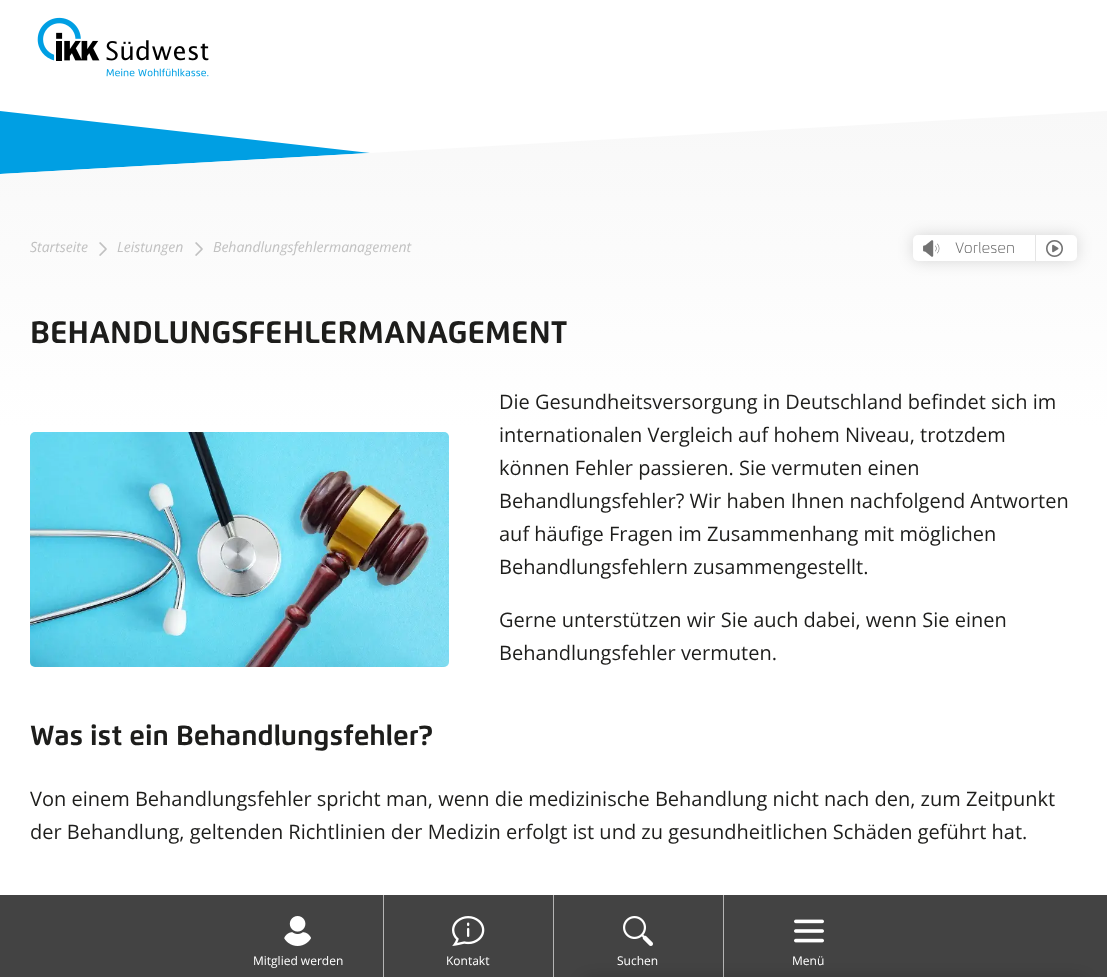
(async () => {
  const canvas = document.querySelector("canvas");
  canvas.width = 1107;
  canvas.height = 977;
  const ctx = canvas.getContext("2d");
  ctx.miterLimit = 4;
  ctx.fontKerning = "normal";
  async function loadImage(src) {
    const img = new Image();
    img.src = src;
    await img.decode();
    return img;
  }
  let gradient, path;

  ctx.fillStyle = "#ffffff";
  ctx.fillRect(0, 0, 1107, 977);
  ctx.fillStyle = "#009fe3";
  path = new Path2D("M0 111L370 153L0 174Z");
  ctx.fill(path);
  gradient = ctx.createLinearGradient(554, 427, 554, 111);
  gradient.addColorStop(0, "rgba(248, 248, 248, 0)");
  gradient.addColorStop(1, "#f8f8f8");
  ctx.fillStyle = gradient;
  path = new Path2D("M0 427H1107V111L0 174Z");
  ctx.fill(path);
  ctx.drawImage(await loadImage("img/1.png"), 99, 242, 8, 14);
  ctx.drawImage(await loadImage("img/1.png"), 195, 242, 8, 14);
  ctx.fillStyle = "rgba(0, 0, 0, 0.15)";
  ctx.filter = "blur(7.5px)";
  ctx.beginPath();
  ctx.roundRect(913, 235, 164, 26, 5);
  ctx.fill();
  ctx.filter = "none";
  ctx.fillStyle = "#ffffff";
  ctx.beginPath();
  ctx.roundRect(913, 235, 122, 26, [5, 0, 0, 5]);
  ctx.fill();
  ctx.drawImage(await loadImage("img/2.png"), 923, 240, 17, 17);
  ctx.beginPath();
  ctx.roundRect(1035, 235, 42, 26, [0, 5, 5, 0]);
  ctx.fill();
  ctx.fillStyle = "#e5e5e5";
  ctx.fillRect(1035, 235, 1, 26);
  ctx.drawImage(await loadImage("img/3.png"), 1046, 240, 17, 17);
  ctx.drawImage(await loadImage("img/4.png"), 30, 432, 419, 235);
  ctx.drawImage(await loadImage("img/5.png"), 37, 17, 172, 60);
  ctx.fillStyle = "#434343";
  ctx.fillRect(0, 895, 1107, 82);
  ctx.fillStyle = "#b4b4b4";
  ctx.fillRect(383, 895, 1, 82);
  ctx.drawImage(await loadImage("img/6.png"), 284, 916, 27, 30);
  ctx.fillRect(553, 895, 1, 82);
  ctx.drawImage(await loadImage("img/7.png"), 452, 916, 33, 30);
  ctx.fillRect(723, 895, 1, 82);
  ctx.drawImage(await loadImage("img/8.png"), 623, 916, 30, 30);
  ctx.drawImage(await loadImage("img/9.png"), 794, 919, 30, 24);
  ctx.fillStyle = "rgba(0, 0, 0, 0.2)";
  ctx.filter = "blur(7.5px)";
  ctx.beginPath();
  ctx.roundRect(582, 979, 505, 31, 10);
  ctx.fill();
  ctx.filter = "none";
  ctx.font = "italic 14px Open Sans";
  ctx.fillStyle = "#c1c1c1";
  for (const [text, x, y] of [
    ["Startseite", 30, 252],
    ["Leistungen", 117, 252],
    ["Behandlungsfehlermanagement", 213, 252],
  ]) {
    ctx.fillText(text, x, y);
  }
  ctx.font = "300 15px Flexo";
  ctx.fillStyle = "#727272";
  ctx.fillText("Vorlesen", 955, 253);
  ctx.font = "bold 31px Flexo";
  ctx.fillStyle = "#1d1d1b";
  ctx.fillText("BEHANDLUNGSFEHLERMANAGEMENT", 30, 343);
  ctx.font = "20px Open Sans";
  for (const [text, x, y] of [
    ["Die Gesundheitsversorgung in Deutschland befindet sich im", 499, 409],
    ["internationalen Vergleich auf hohem Niveau, trotzdem", 499, 442],
    ["können Fehler passieren. Sie vermuten einen", 499, 475],
    ["Behandlungsfehler? Wir haben Ihnen nachfolgend Antworten", 499, 508],
    ["auf häufige Fragen im Zusammenhang mit möglichen", 499, 541],
    ["Behandlungsfehlern zusammengestellt.", 499, 574],
    ["Gerne unterstützen wir Sie auch dabei, wenn Sie einen", 499, 627],
    ["Behandlungsfehler vermuten.", 499, 660],
  ]) {
    ctx.fillText(text, x, y);
  }
  ctx.font = "bold 27.6px Flexo";
  ctx.fillText("Was ist ein Behandlungsfehler?", 30, 745);
  ctx.font = "20px Open Sans";
  ctx.fillText("Von einem Behandlungsfehler spricht man, wenn die medizinische Behandlung nicht nach den, zum Zeitpunkt", 30, 806);
  ctx.fillText("der Behandlung, geltenden Richtlinien der Medizin erfolgt ist und zu gesundheitlichen Schäden geführt hat.", 30, 839);
  ctx.font = "12px Open Sans";
  ctx.fillStyle = "#ffffff";
  for (const [text, x, y] of [
    ["Mitglied werden", 253, 965],
    ["Kontakt", 446, 965],
    ["Suchen", 617, 965],
    ["Menü", 792, 965],
  ]) {
    ctx.fillText(text, x, y);
  }
})();
